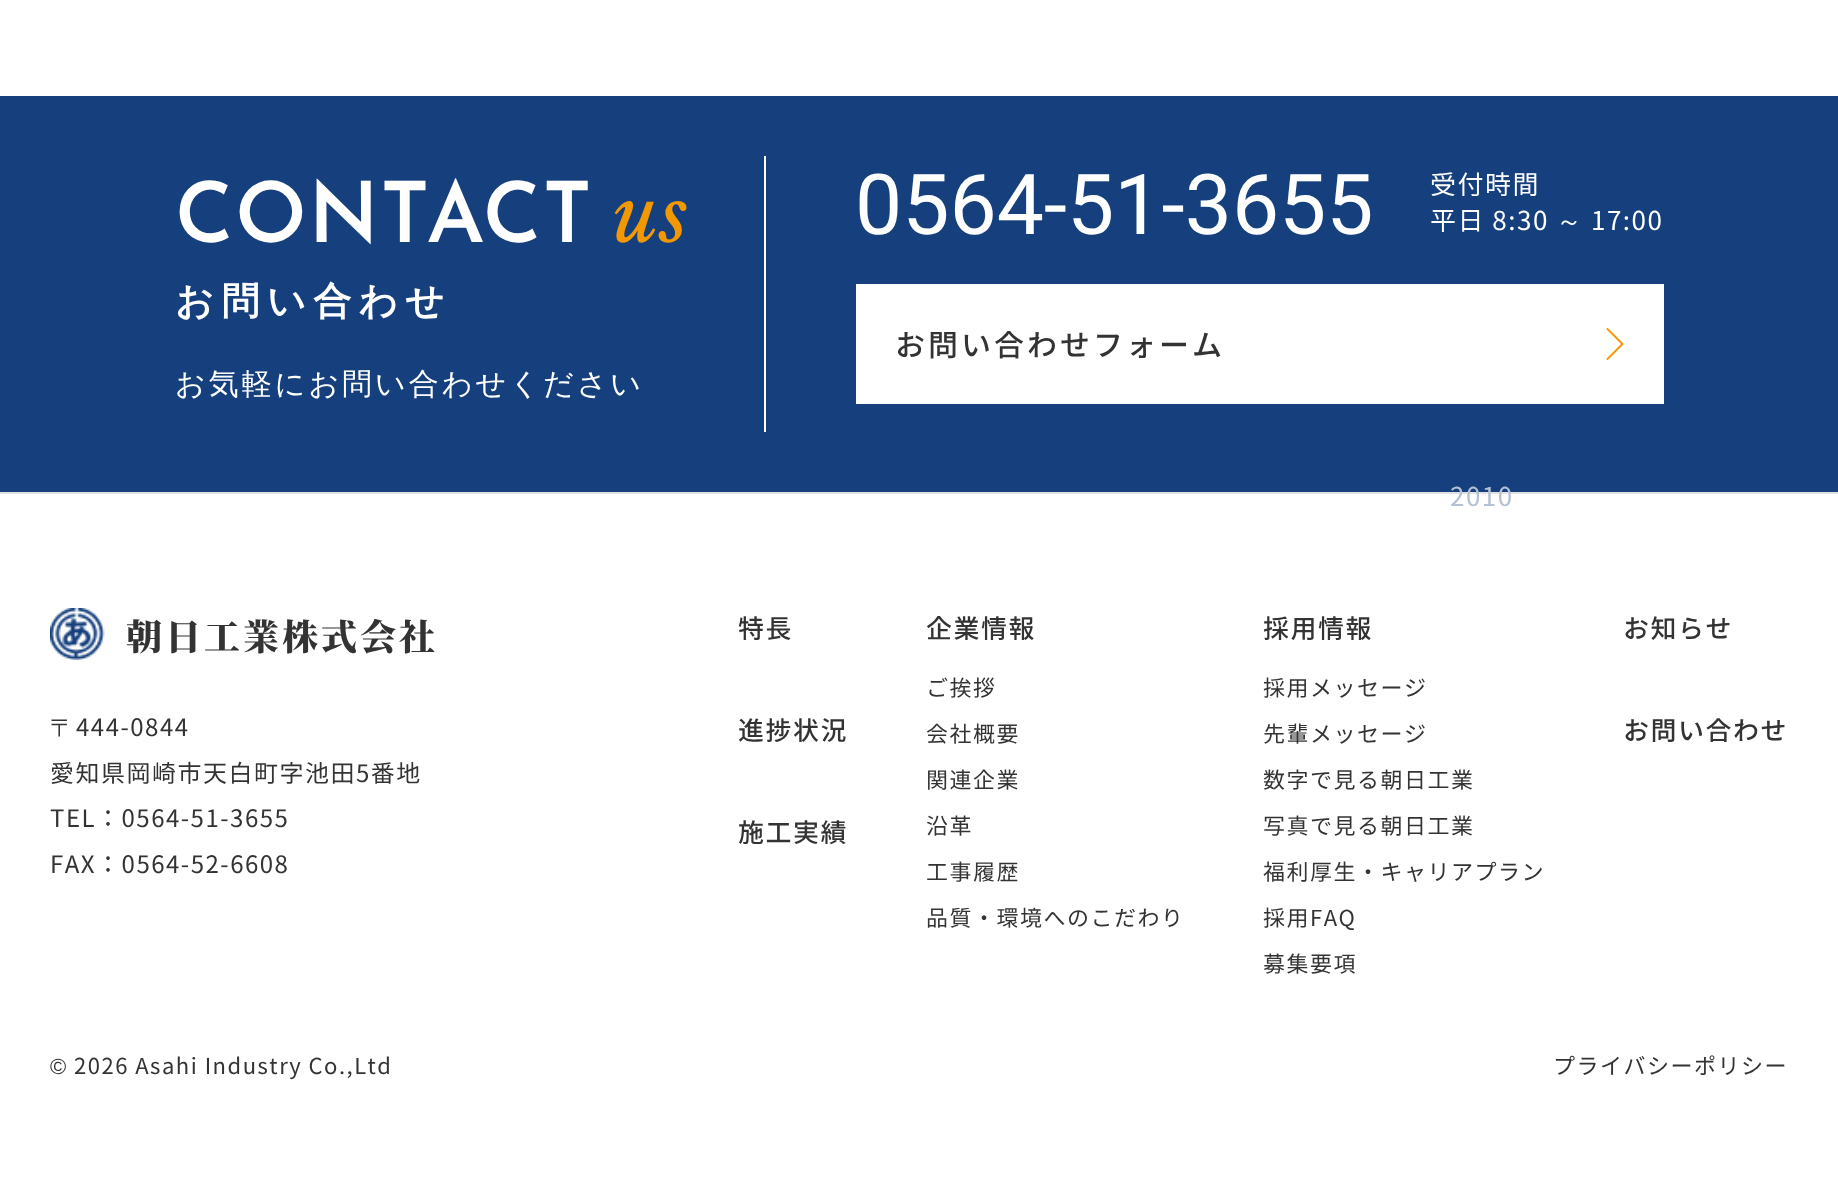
(async () => {
  const canvas = document.querySelector("canvas");
  canvas.width = 1838;
  canvas.height = 1196;
  const ctx = canvas.getContext("2d");
  ctx.miterLimit = 4;
  ctx.fontKerning = "normal";
  async function loadImage(src) {
    const img = new Image();
    img.src = src;
    await img.decode();
    return img;
  }

  ctx.fillStyle = "#ffffff";
  ctx.fillRect(0, 0, 1838, 1196);
  for (const [x, y, w, h, color] of [
    [0, 96, 1838, 396, "#16407d"],
    [764, 156, 2, 276, "#ffffff"],
    [856, 284, 808, 120, "#ffffff"],
  ]) {
    ctx.fillStyle = color;
    ctx.fillRect(x, y, w, h);
  }
  ctx.drawImage(await loadImage("img/1.png"), 1606, 328, 18, 32);
  ctx.fillStyle = "#e2e2e2";
  ctx.fillRect(0, 492, 1838, 2);
  ctx.drawImage(await loadImage("img/2.png"), 50, 608, 55, 52);
  ctx.letterSpacing = "1.5px";
  ctx.font = "600 84px Josefin Sans";
  ctx.fillStyle = "#ffffff";
  ctx.fillText("CONTACT", 175, 242);
  ctx.font = "italic 76px Libre Baskerville";
  ctx.fillStyle = "#f39800";
  ctx.fillText("us", 613, 242);
  ctx.letterSpacing = "7.5px";
  ctx.font = "bold 38px WenQuanYi Zen Hei";
  ctx.fillStyle = "#ffffff";
  ctx.fillText("お問い合わせ", 175, 314);
  ctx.letterSpacing = "3px";
  ctx.font = "500 30px WenQuanYi Zen Hei";
  ctx.fillText("お気軽にお問い合わせください", 175, 394);
  ctx.letterSpacing = "0px";
  ctx.font = "84px Roboto";
  ctx.fillText("0564-51-3655", 855, 234);
  ctx.letterSpacing = "1.5px";
  ctx.font = "26px Noto Sans JP";
  ctx.fillText("受付時間", 1430, 194);
  ctx.fillText("平日 8:30", 1430, 230);
  ctx.font = "500 26px WenQuanYi Zen Hei";
  ctx.fillText("～", 1556, 230);
  ctx.font = "26px Noto Sans JP";
  ctx.fillText("17:00", 1591, 230);
  ctx.letterSpacing = "3px";
  ctx.font = "500 30px Noto Sans JP";
  ctx.fillStyle = "#333333";
  ctx.fillText("お問い合わせフォーム", 895, 356);
  ctx.letterSpacing = "1.5px";
  ctx.font = "26px Noto Sans JP";
  ctx.fillStyle = "#b4c1d4";
  ctx.fillText("2010", 1450, 506);
  ctx.letterSpacing = "3px";
  ctx.font = "900 36px Noto Serif JP";
  ctx.fillStyle = "#333333";
  ctx.fillText("朝日工業株式会社", 126, 650);
  ctx.letterSpacing = "1.5px";
  ctx.font = "500 24px WenQuanYi Zen Hei";
  ctx.fillText("〒", 50, 736);
  ctx.font = "24px Noto Sans JP";
  for (const [text, x, y] of [
    ["444-0844", 76, 736],
    ["愛知県岡崎市天白町字池田5番地", 50, 782],
    ["TEL：0564-51-3655", 50, 827],
    ["FAX：0564-52-6608", 50, 873],
  ]) {
    ctx.fillText(text, x, y);
  }
  ctx.font = "500 26px Noto Sans JP";
  for (const [text, x, y] of [
    ["特長", 738, 638],
    ["進捗状況", 738, 740],
    ["施工実績", 738, 842],
    ["企業情報", 926, 638],
  ]) {
    ctx.fillText(text, x, y);
  }
  ctx.font = "22px Noto Sans JP";
  for (const [text, x, y] of [
    ["ご挨拶", 926, 696],
    ["会社概要", 926, 742],
    ["関連企業", 926, 788],
    ["沿革", 926, 834],
    ["工事履歴", 926, 880],
    ["品質・環境へのこだわり", 926, 926],
  ]) {
    ctx.fillText(text, x, y);
  }
  ctx.font = "500 26px Noto Sans JP";
  ctx.fillText("採用情報", 1263, 638);
  ctx.font = "22px Noto Sans JP";
  for (const [text, x, y] of [
    ["採用メッセージ", 1263, 696],
    ["先輩メッセージ", 1263, 742],
    ["数字で見る朝日工業", 1263, 788],
    ["写真で見る朝日工業", 1263, 834],
    ["福利厚生・キャリアプラン", 1263, 880],
    ["採用FAQ", 1263, 926],
    ["募集要項", 1263, 972],
  ]) {
    ctx.fillText(text, x, y);
  }
  ctx.font = "500 26px Noto Sans JP";
  ctx.fillText("お知らせ", 1623, 638);
  ctx.fillText("お問い合わせ", 1623, 740);
  ctx.font = "22px Liberation Sans";
  ctx.fillText("©", 50, 1074);
  ctx.font = "22px Noto Sans JP";
  ctx.fillText("2026 Asahi Industry Co.,Ltd", 74, 1074);
  ctx.fillText("プライバシーポリシー", 1553, 1074);
})();
